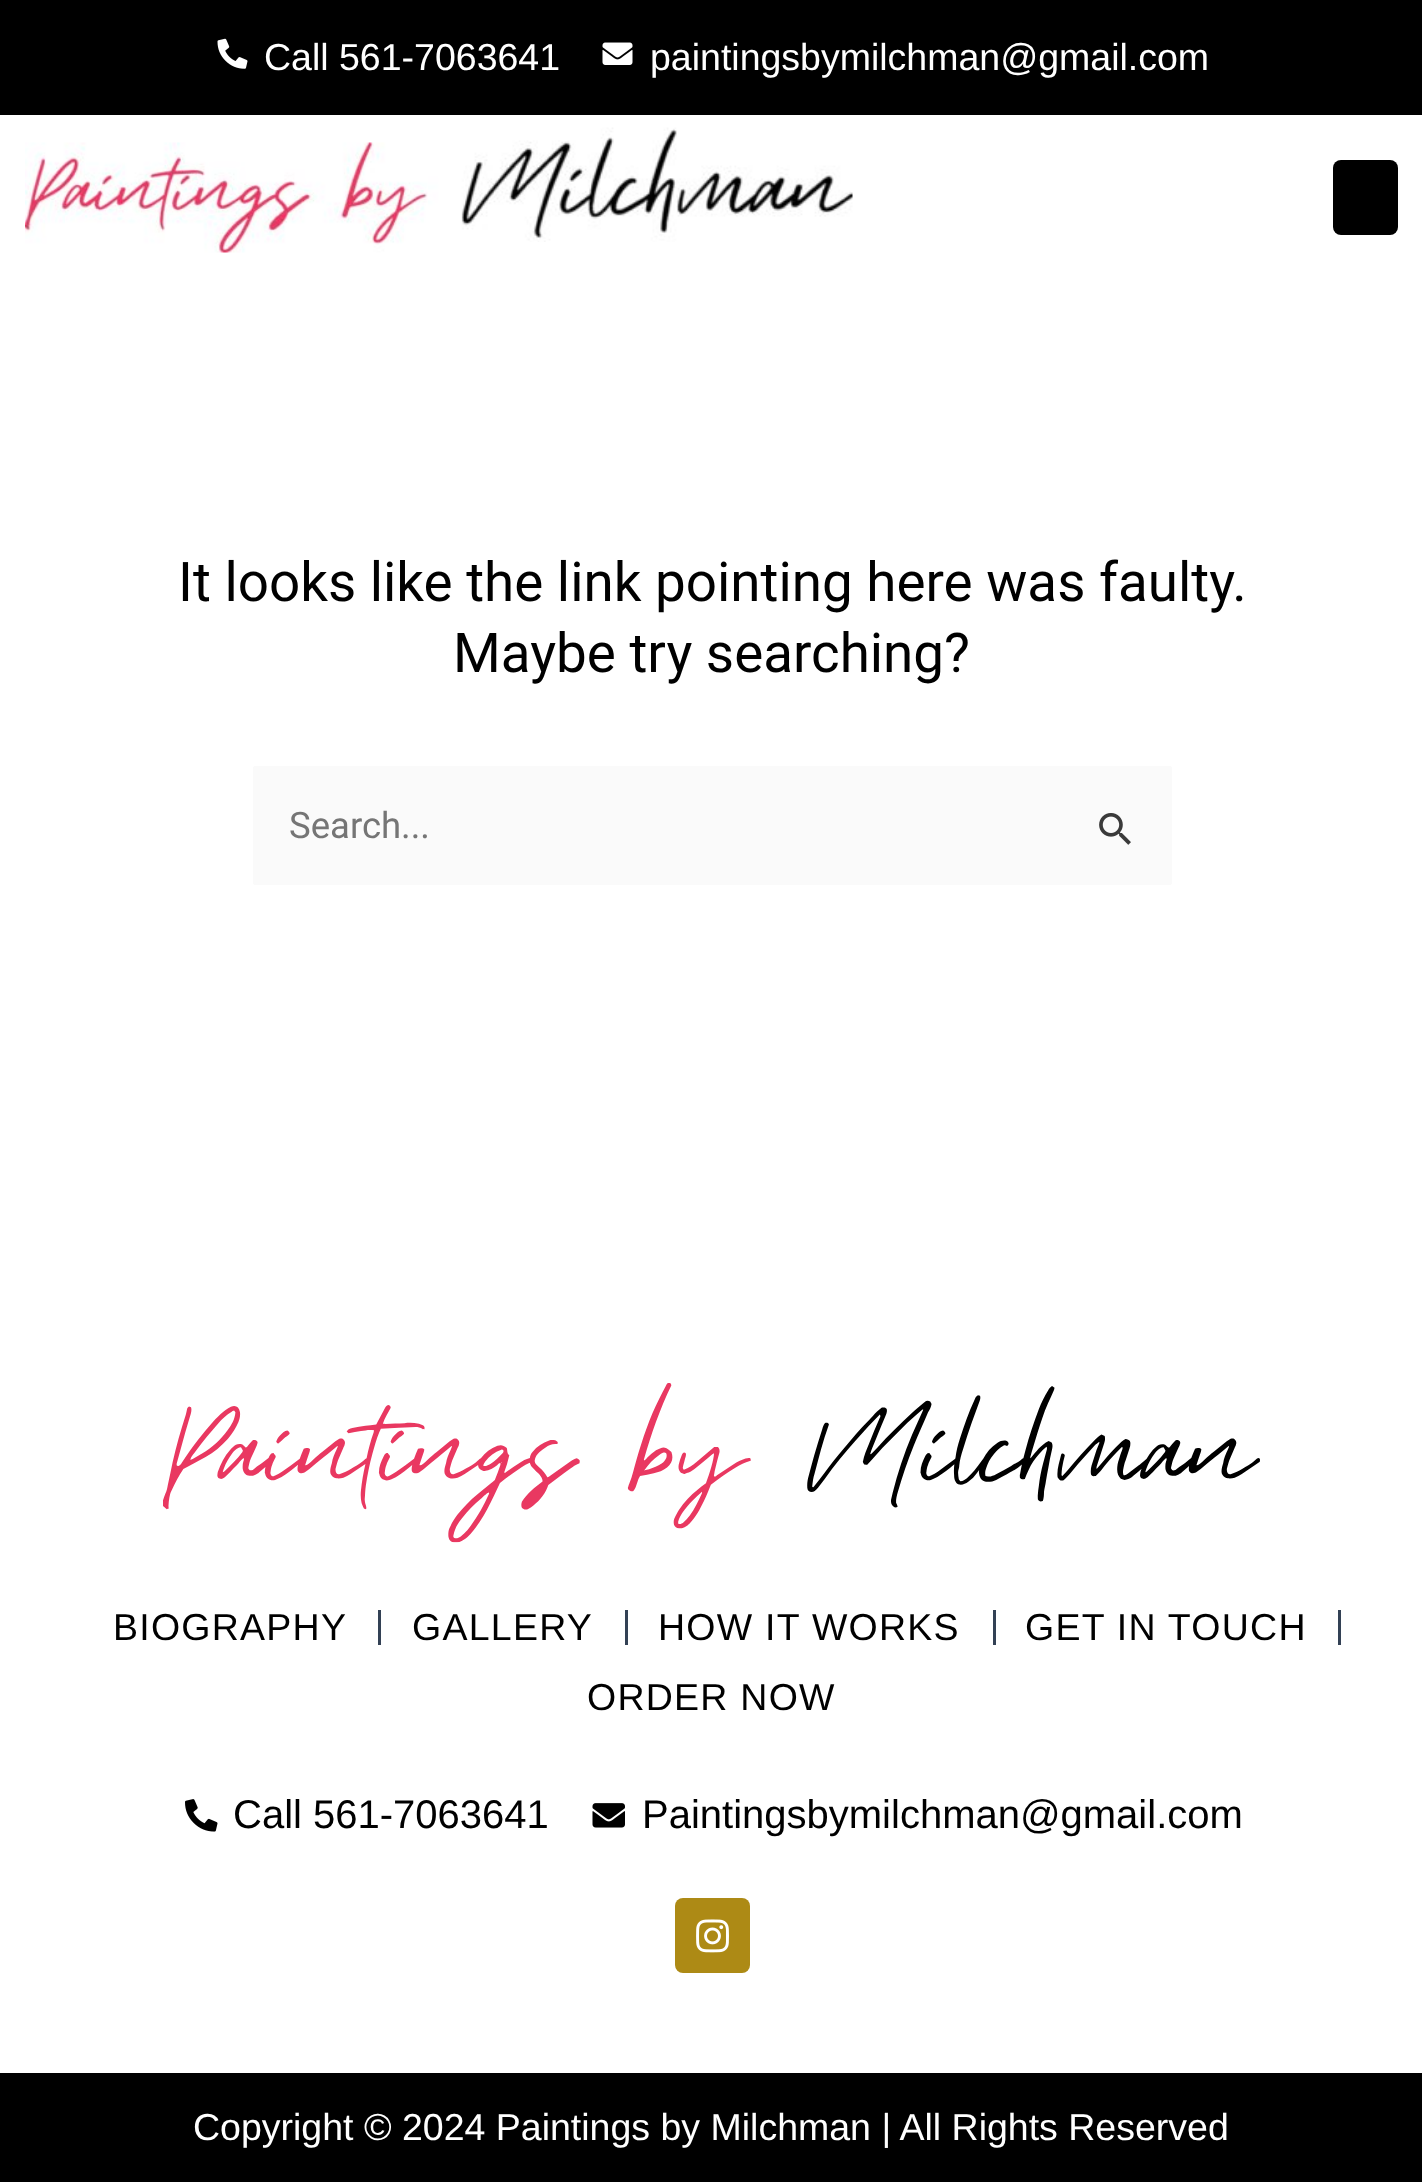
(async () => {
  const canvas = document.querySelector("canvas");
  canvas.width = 1422;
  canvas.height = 2182;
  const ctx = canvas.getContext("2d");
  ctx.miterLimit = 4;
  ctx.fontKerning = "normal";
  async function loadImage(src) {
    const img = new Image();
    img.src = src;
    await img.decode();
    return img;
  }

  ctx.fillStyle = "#ffffff";
  ctx.fillRect(0, 0, 1422, 2182);
  ctx.fillStyle = "#000000";
  ctx.fillRect(0, 0, 1422, 115);
  ctx.drawImage(await loadImage("img/1.png"), 217, 38, 31, 31);
  ctx.drawImage(await loadImage("img/2.png"), 602, 42, 31, 23);
  ctx.drawImage(await loadImage("img/3.png"), 25, 142, 403, 111);
  ctx.drawImage(await loadImage("img/4.png"), 428, 127, 425, 115);
  ctx.beginPath();
  ctx.roundRect(1333, 160, 65, 75, 8);
  ctx.fill();
  ctx.fillStyle = "#fafafa";
  ctx.beginPath();
  ctx.roundRect(251.5, 764.5, 922, 122, 3.5);
  ctx.fill();
  ctx.strokeStyle = "#ffffff";
  ctx.lineWidth = 3;
  ctx.stroke();
  ctx.drawImage(await loadImage("img/5.png"), 1099, 813, 32, 32);
  ctx.drawImage(await loadImage("img/6.png"), 163, 1383, 1097, 160);
  for (const [x, y, w, h, color] of [
    [378, 1610, 3, 35, "#334155"],
    [625, 1610, 3, 35, "#334155"],
    [993, 1610, 3, 35, "#334155"],
    [1338, 1610, 3, 35, "#334155"],
  ]) {
    ctx.fillStyle = color;
    ctx.fillRect(x, y, w, h);
  }
  ctx.drawImage(await loadImage("img/7.png"), 185, 1799, 33, 33);
  ctx.drawImage(await loadImage("img/8.png"), 592, 1803, 33, 25);
  ctx.fillStyle = "#ad8a15";
  ctx.beginPath();
  ctx.roundRect(675, 1898, 75, 75, 8);
  ctx.fill();
  ctx.drawImage(await loadImage("img/9.png"), 696, 1919, 33, 34);
  ctx.fillStyle = "#000000";
  ctx.fillRect(0, 2073, 1422, 109);
  ctx.font = "37.5px Liberation Sans";
  ctx.fillStyle = "#ffffff";
  ctx.fillText("Call 561-7063641", 264, 70);
  ctx.fillText("paintingsbymilchman@gmail.com", 650, 70);
  ctx.font = "54.75px Roboto";
  ctx.fillStyle = "#000000";
  ctx.fillText("It looks like the link pointing here was faulty.", 178, 601);
  ctx.fillText("Maybe try searching?", 453, 672);
  ctx.font = "36.5px Roboto";
  ctx.fillStyle = "#757575";
  ctx.fillText("Search...", 289, 838);
  ctx.letterSpacing = "1.25px";
  ctx.font = "37.5px Liberation Sans";
  ctx.fillStyle = "#000000";
  for (const [text, x, y] of [
    ["BIOGRAPHY", 113, 1640],
    ["GALLERY", 412, 1640],
    ["HOW IT WORKS", 658, 1640],
    ["GET IN TOUCH", 1025, 1640],
    ["ORDER NOW", 587, 1710],
  ]) {
    ctx.fillText(text, x, y);
  }
  ctx.letterSpacing = "0px";
  ctx.font = "40px Liberation Sans";
  ctx.fillText("Call 561-7063641", 233, 1828);
  ctx.fillText("Paintingsbymilchman@gmail.com", 642, 1828);
  ctx.font = "37.5px Liberation Sans";
  ctx.fillStyle = "#ffffff";
  ctx.fillText("Copyright © 2024 Paintings by Milchman | All Rights Reserved", 193, 2140);
})();
